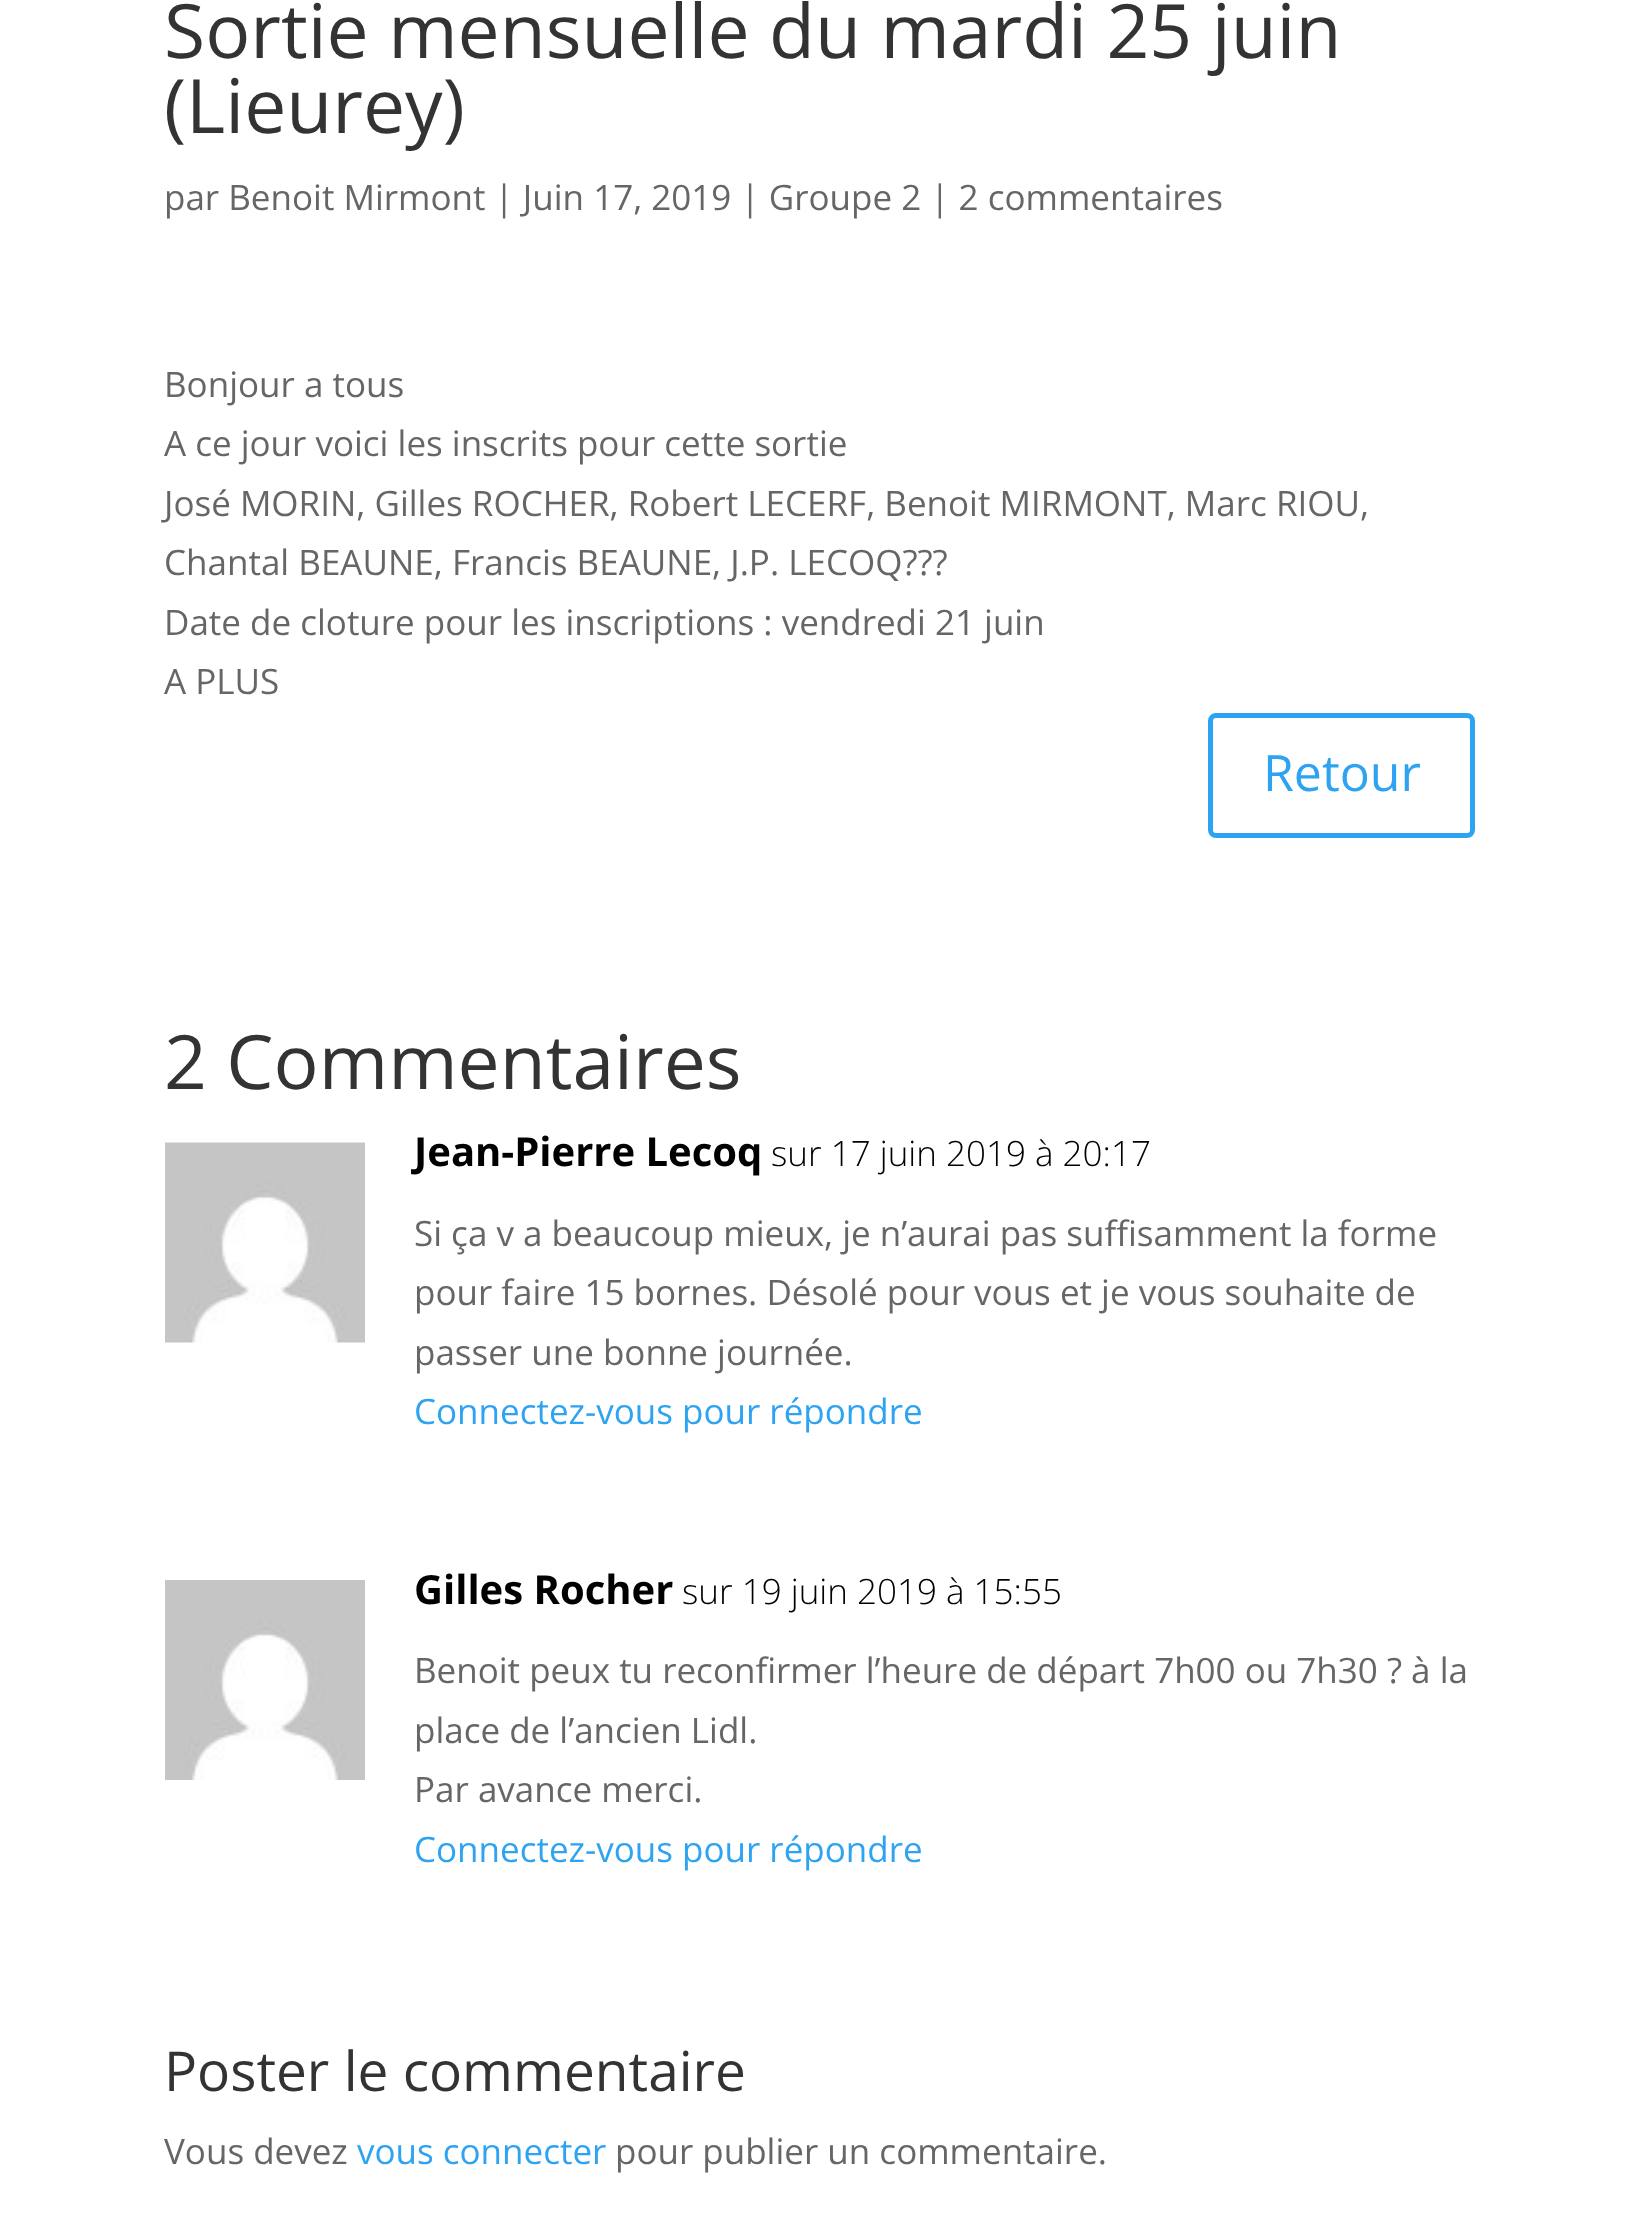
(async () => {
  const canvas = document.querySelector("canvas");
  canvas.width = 1639;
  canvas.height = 2221;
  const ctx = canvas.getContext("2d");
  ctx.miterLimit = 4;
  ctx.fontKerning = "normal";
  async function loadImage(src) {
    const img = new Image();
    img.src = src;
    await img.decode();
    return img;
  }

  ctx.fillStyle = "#ffffff";
  ctx.fillRect(0, 0, 1639, 2221);
  ctx.beginPath();
  ctx.roundRect(1210.5, 715.5, 262, 120, 5.5);
  ctx.strokeStyle = "#2ea3f2";
  ctx.lineWidth = 5;
  ctx.stroke();
  ctx.drawImage(await loadImage("img/1.png"), 165, 1142, 200, 201);
  ctx.drawImage(await loadImage("img/2.png"), 165, 1580, 200, 200);
  ctx.font = "75px Open Sans";
  ctx.fillStyle = "#333333";
  ctx.fillText("Sortie mensuelle du mardi 25 juin", 164, 58);
  ctx.fillText("(Lieurey)", 164, 133);
  ctx.font = "35px Open Sans";
  ctx.fillStyle = "#666666";
  for (const [text, x, y] of [
    ["par Benoit Mirmont | Juin 17, 2019 | Groupe 2 | 2 commentaires", 164, 210],
    ["Bonjour a tous", 164, 397],
    ["A ce jour voici les inscrits pour cette sortie", 164, 456],
    ["José MORIN, Gilles ROCHER, Robert LECERF, Benoit MIRMONT, Marc RIOU,", 164, 516],
    ["Chantal BEAUNE, Francis BEAUNE, J.P. LECOQ???", 164, 575],
    ["Date de cloture pour les inscriptions : vendredi 21 juin", 164, 635],
    ["A PLUS", 164, 694],
  ]) {
    ctx.fillText(text, x, y);
  }
  ctx.font = "50px Open Sans";
  ctx.fillStyle = "#2ea3f2";
  ctx.fillText("Retour", 1263, 791);
  ctx.font = "75px Open Sans";
  ctx.fillStyle = "#333333";
  ctx.fillText("2 Commentaires", 164, 1089);
  ctx.font = "bold 40px Open Sans";
  ctx.fillStyle = "#000000";
  ctx.fillText("Jean-Pierre Lecoq", 414, 1166);
  ctx.font = "300 35px Open Sans";
  ctx.fillText("sur 17 juin 2019 à 20:17", 771, 1166);
  ctx.font = "35px Open Sans";
  ctx.fillStyle = "#666666";
  for (const [text, x, y] of [
    ["Si ça v a beaucoup mieux, je n’aurai pas suffisamment la forme", 414, 1246],
    ["pour faire 15 bornes. Désolé pour vous et je vous souhaite de", 414, 1305],
    ["passer une bonne journée.", 414, 1365],
  ]) {
    ctx.fillText(text, x, y);
  }
  ctx.fillStyle = "#2ea3f2";
  ctx.fillText("Connectez-vous pour répondre", 414, 1424);
  ctx.font = "bold 40px Open Sans";
  ctx.fillStyle = "#000000";
  ctx.fillText("Gilles Rocher", 414, 1604);
  ctx.font = "300 35px Open Sans";
  ctx.fillText("sur 19 juin 2019 à 15:55", 682, 1604);
  ctx.font = "35px Open Sans";
  ctx.fillStyle = "#666666";
  for (const [text, x, y] of [
    ["Benoit peux tu reconfirmer l’heure de départ 7h00 ou 7h30 ? à la", 414, 1683],
    ["place de l’ancien Lidl.", 414, 1743],
    ["Par avance merci.", 414, 1802],
  ]) {
    ctx.fillText(text, x, y);
  }
  ctx.fillStyle = "#2ea3f2";
  ctx.fillText("Connectez-vous pour répondre", 414, 1862);
  ctx.font = "55px Open Sans";
  ctx.fillStyle = "#333333";
  ctx.fillText("Poster le commentaire", 164, 2091);
  ctx.font = "35px Open Sans";
  ctx.fillStyle = "#666666";
  ctx.fillText("Vous devez", 164, 2164);
  ctx.fillStyle = "#2ea3f2";
  ctx.fillText("vous connecter", 357, 2164);
  ctx.fillStyle = "#666666";
  ctx.fillText("pour publier un commentaire.", 615, 2164);
})();
